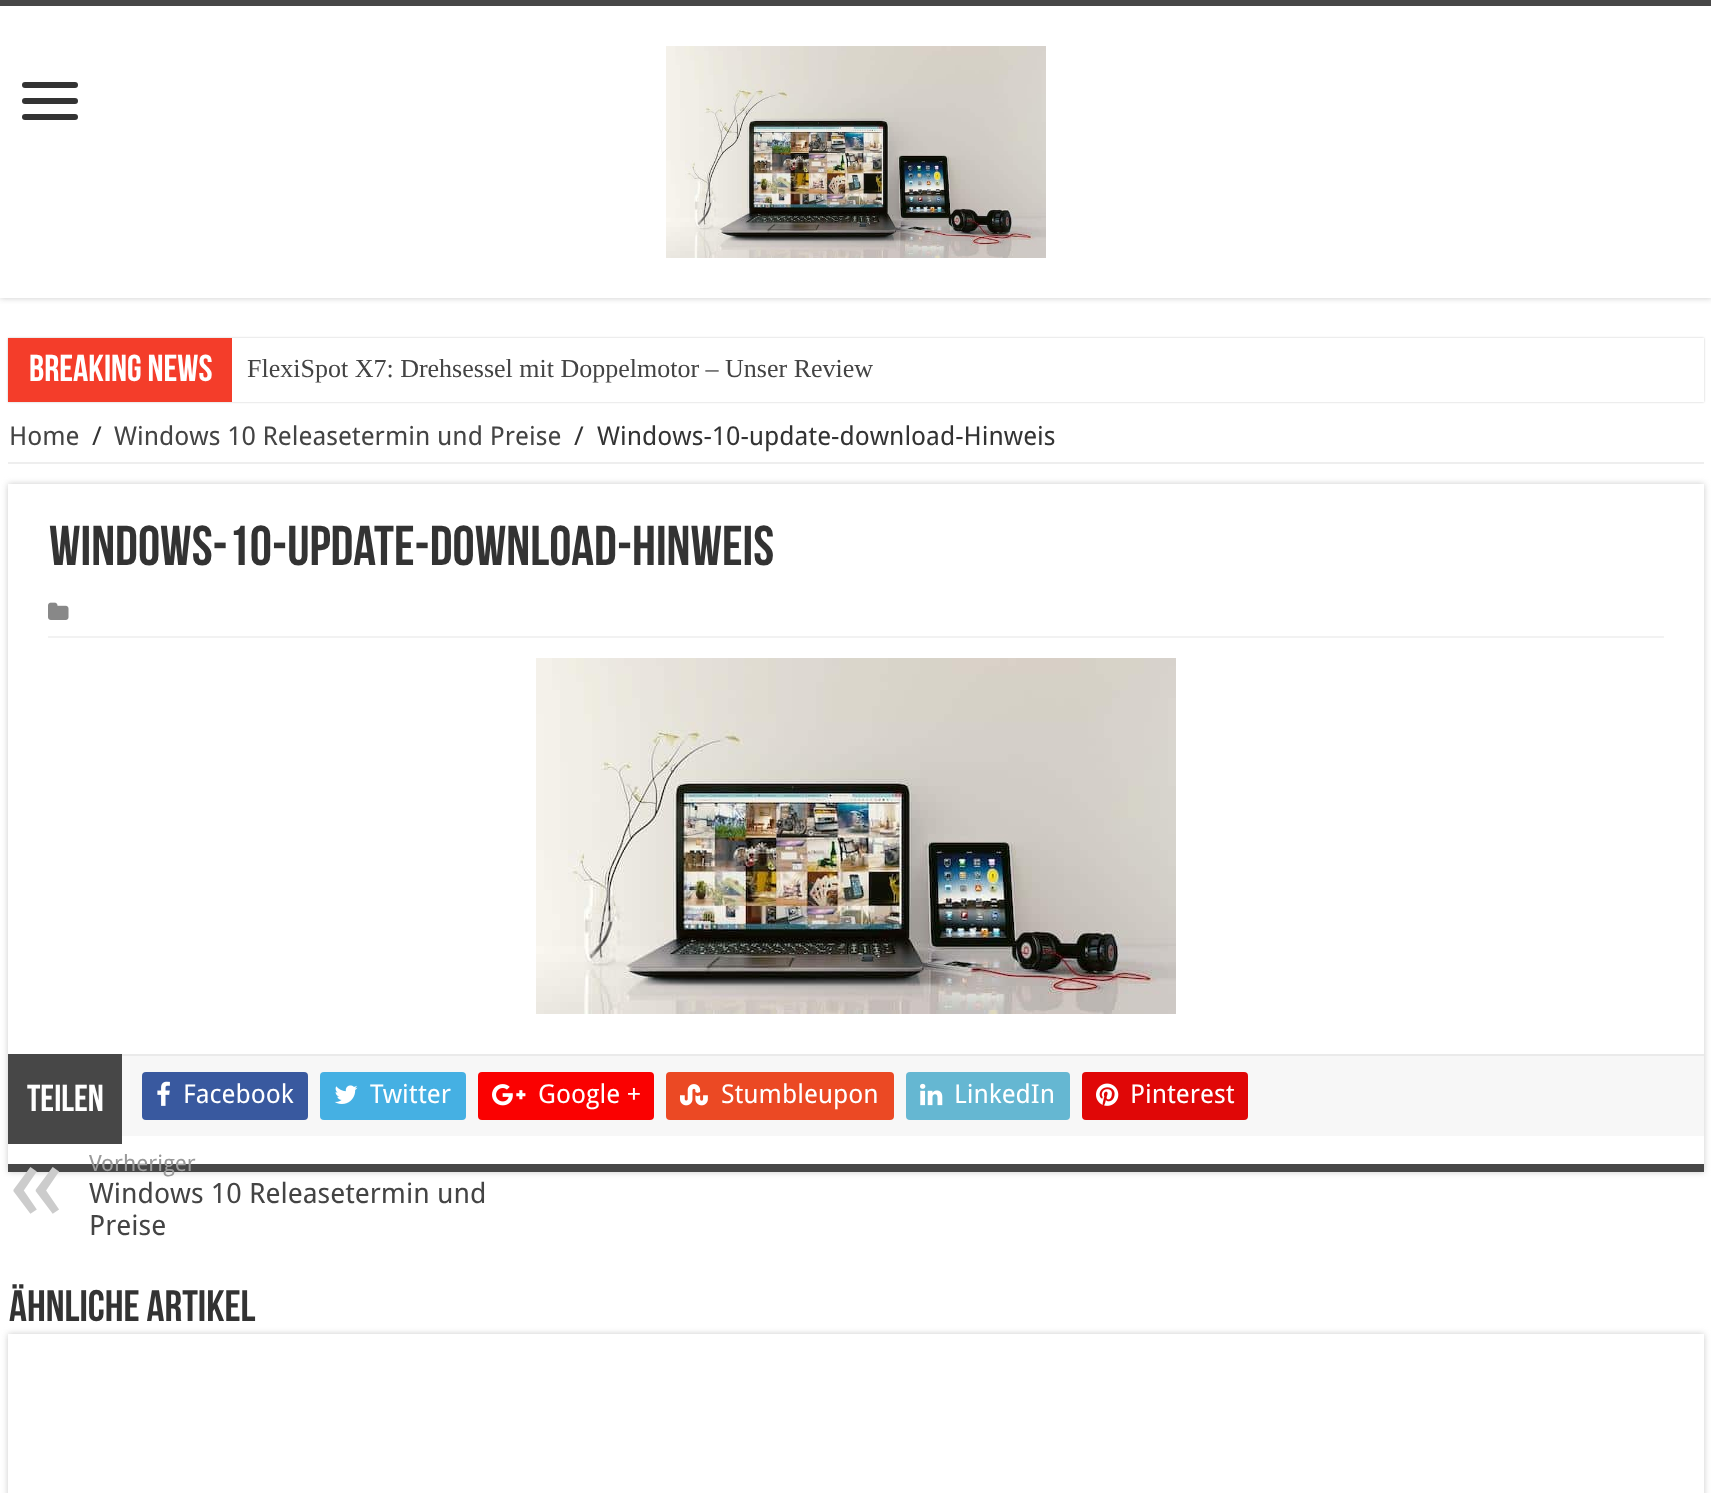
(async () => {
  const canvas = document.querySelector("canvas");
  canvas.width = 1711;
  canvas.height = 1493;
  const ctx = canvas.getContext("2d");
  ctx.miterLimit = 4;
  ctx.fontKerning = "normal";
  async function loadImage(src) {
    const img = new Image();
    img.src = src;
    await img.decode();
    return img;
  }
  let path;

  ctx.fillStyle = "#ffffff";
  ctx.fillRect(0, 0, 1711, 1493);
  ctx.save();
  ctx.beginPath();
  ctx.rect(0, 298, 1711, 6);
  ctx.clip();
  ctx.fillStyle = "#cacaca";
  ctx.filter = "blur(3px)";
  ctx.beginPath();
  ctx.rect(0, 0, 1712, 298);
  ctx.fill();
  ctx.filter = "none";
  ctx.restore();
  ctx.fillStyle = "#474747";
  ctx.fillRect(0, 0, 1711, 6);
  ctx.fillStyle = "#333333";
  ctx.beginPath();
  ctx.roundRect(22, 82, 56, 6, 3);
  ctx.fill();
  ctx.beginPath();
  ctx.roundRect(22, 98, 56, 6, 3);
  ctx.fill();
  ctx.beginPath();
  ctx.roundRect(22, 114, 56, 6, 3);
  ctx.fill();
  ctx.drawImage(await loadImage("img/1.png"), 666, 46, 380, 212);
  ctx.save();
  path = new Path2D("M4 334H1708V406H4ZM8 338H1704V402H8Z");
  ctx.clip(path, "evenodd");
  ctx.fillStyle = "#cacaca";
  ctx.filter = "blur(1px)";
  ctx.beginPath();
  ctx.rect(8, 338, 1696, 64);
  ctx.fill();
  ctx.filter = "none";
  ctx.restore();
  ctx.fillStyle = "#f43d2a";
  ctx.fillRect(8, 338, 224, 64);
  ctx.fillStyle = "#eeeeee";
  ctx.fillRect(8, 462, 1696, 2);
  ctx.save();
  path = new Path2D("M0 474H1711V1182H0ZM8 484H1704V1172H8Z");
  ctx.clip(path, "evenodd");
  ctx.fillStyle = "#cacaca";
  ctx.filter = "blur(3px)";
  ctx.beginPath();
  ctx.rect(8, 484, 1696, 688);
  ctx.fill();
  ctx.filter = "none";
  ctx.restore();
  ctx.fillStyle = "#474747";
  ctx.fillRect(8, 1164, 1696, 8);
  ctx.fillStyle = "#f2f2f2";
  ctx.fillRect(48, 636, 1616, 2);
  ctx.drawImage(await loadImage("img/2.png"), 48, 602, 21, 18);
  ctx.drawImage(await loadImage("img/3.png"), 536, 658, 640, 356);
  for (const [x, y, w, h, color] of [
    [122, 1056, 1582, 80, "#f7f7f7"],
    [122, 1054, 1582, 2, "#eaeaea"],
    [8, 1054, 114, 90, "#474747"],
  ]) {
    ctx.fillStyle = color;
    ctx.fillRect(x, y, w, h);
  }
  ctx.fillStyle = "#39599f";
  ctx.beginPath();
  ctx.roundRect(142, 1072, 166, 48, 4);
  ctx.fill();
  ctx.drawImage(await loadImage("img/4.png"), 157, 1081, 13, 25);
  ctx.fillStyle = "#45b0e3";
  ctx.beginPath();
  ctx.roundRect(320, 1072, 146, 48, 4);
  ctx.fill();
  ctx.drawImage(await loadImage("img/5.png"), 334, 1085, 24, 19);
  ctx.fillStyle = "#fa0101";
  ctx.beginPath();
  ctx.roundRect(478, 1072, 176, 48, 4);
  ctx.fill();
  ctx.drawImage(await loadImage("img/6.png"), 492, 1084, 34, 22);
  ctx.fillStyle = "#eb4924";
  ctx.beginPath();
  ctx.roundRect(666, 1072, 228, 48, 4);
  ctx.fill();
  ctx.drawImage(await loadImage("img/7.png"), 680, 1084, 28, 22);
  ctx.fillStyle = "#65b7d2";
  ctx.beginPath();
  ctx.roundRect(906, 1072, 164, 48, 4);
  ctx.fill();
  ctx.drawImage(await loadImage("img/8.png"), 920, 1083, 23, 23);
  ctx.fillStyle = "#e00707";
  ctx.beginPath();
  ctx.roundRect(1082, 1072, 166, 48, 4);
  ctx.fill();
  ctx.drawImage(await loadImage("img/9.png"), 1096, 1083, 23, 23);
  ctx.save();
  path = new Path2D("M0 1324H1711V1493H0ZM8 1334H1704V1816H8Z");
  ctx.clip(path, "evenodd");
  ctx.fillStyle = "#cacaca";
  ctx.filter = "blur(3px)";
  ctx.beginPath();
  ctx.rect(8, 1334, 1696, 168);
  ctx.fill();
  ctx.filter = "none";
  ctx.restore();
  ctx.font = "bold 37.5px Bebas Neue";
  ctx.fillStyle = "#ffffff";
  ctx.fillText("Breaking News", 29, 381);
  ctx.font = "26px Liberation Serif";
  ctx.fillStyle = "#444444";
  ctx.fillText("FlexiSpot X7: Drehsessel mit Doppelmotor – Unser Review", 247, 377);
  ctx.font = "26px Droid Sans";
  ctx.fillText("Home", 9, 445);
  ctx.fillStyle = "#333333";
  ctx.fillText("/", 92, 445);
  ctx.fillStyle = "#444444";
  ctx.fillText("Windows 10 Releasetermin und Preise", 114, 445);
  ctx.fillStyle = "#333333";
  ctx.fillText("/", 574, 445);
  ctx.fillText("Windows-10-update-download-Hinweis", 597, 445);
  ctx.font = "bold 56px Bebas Neue";
  ctx.fillText("Windows-10-update-download-Hinweis", 49, 565);
  ctx.font = "bold 37.5px Bebas Neue";
  ctx.fillStyle = "#ffffff";
  ctx.fillText("Teilen", 27, 1111);
  ctx.font = "26px Droid Sans";
  for (const [text, x, y] of [
    ["Facebook", 183, 1103],
    ["Twitter", 370, 1103],
    ["Google +", 538, 1103],
    ["Stumbleupon", 721, 1103],
    ["LinkedIn", 954, 1103],
    ["Pinterest", 1130, 1103],
  ]) {
    ctx.fillText(text, x, y);
  }
  ctx.font = "112px Droid Sans";
  ctx.fillStyle = "#cccccc";
  ctx.fillText("«", 9, 1220);
  ctx.font = "22.5px Droid Sans";
  ctx.fillStyle = "#999999";
  ctx.fillText("Vorheriger", 89, 1171);
  ctx.font = "28px Droid Sans";
  ctx.fillStyle = "#444444";
  ctx.fillText("Windows 10 Releasetermin und", 89, 1203);
  ctx.fillText("Preise", 89, 1235);
  ctx.font = "bold 44px Bebas Neue";
  ctx.fillStyle = "#333333";
  ctx.fillText("Ähnliche Artikel", 9, 1321);
})();
